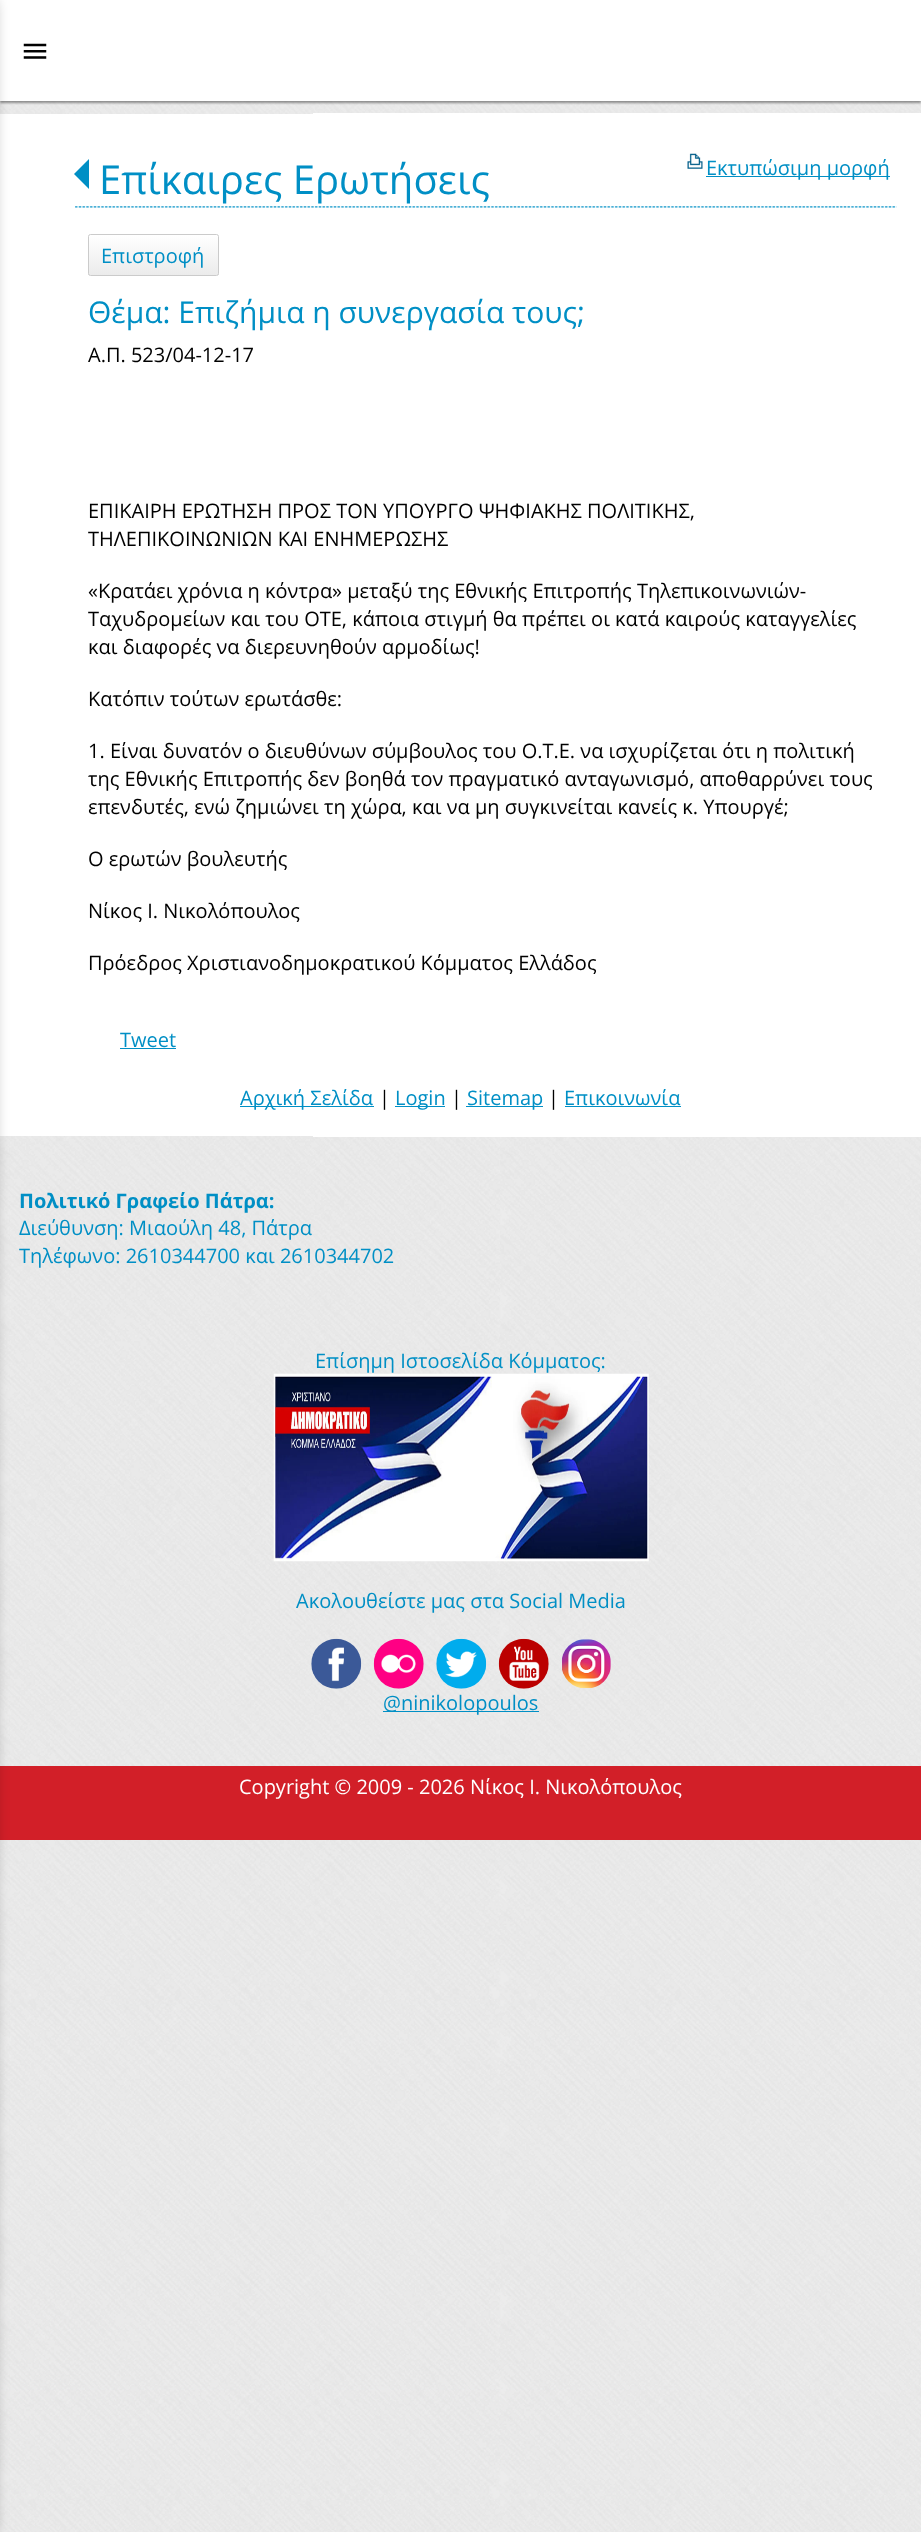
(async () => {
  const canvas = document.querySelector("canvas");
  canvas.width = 921;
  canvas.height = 2532;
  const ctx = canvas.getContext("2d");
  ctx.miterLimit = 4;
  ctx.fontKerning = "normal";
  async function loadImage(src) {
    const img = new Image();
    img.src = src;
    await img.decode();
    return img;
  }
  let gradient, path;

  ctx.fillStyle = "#ffffff";
  ctx.fillRect(0, 0, 921, 2532);
  ctx.drawImage(await loadImage("img/1.png"), 0, 101, 921, 2431);
  ctx.fillStyle = "rgba(0, 0, 0, 0.4)";
  ctx.filter = "blur(1px)";
  ctx.beginPath();
  ctx.rect(0, 1, 921, 102);
  ctx.fill();
  ctx.filter = "none";
  ctx.fillStyle = "#ffffff";
  ctx.fillRect(0, 0, 921, 101);
  ctx.drawImage(await loadImage("img/2.png"), 23, 43, 24, 16);
  ctx.fillRect(0, 114, 313, 1022);
  ctx.fillStyle = "#d21f28";
  ctx.fillRect(0, 1766, 921, 74);
  ctx.fillStyle = "rgba(0, 0, 0, 0.4)";
  ctx.filter = "blur(7.5px)";
  ctx.beginPath();
  ctx.rect(-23, 0, 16, 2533);
  ctx.fill();
  ctx.filter = "none";
  ctx.fillStyle = "#ffffff";
  ctx.fillRect(313, 113, 608, 1024);
  ctx.drawImage(await loadImage("img/3.png"), 75, 206, 822, 2);
  ctx.fillStyle = "#008fc5";
  path = new Path2D("M89 159V189L74 174Z");
  ctx.fill(path);
  ctx.drawImage(await loadImage("img/4.png"), 687, 153, 16, 16);
  ctx.fillRect(706, 176, 184, 1);
  ctx.save();
  ctx.beginPath();
  ctx.roundRect(88, 234, 131, 42, 2.5);
  ctx.clip();
  gradient = ctx.createLinearGradient(153, 235, 153, 275);
  gradient.addColorStop(0, "#ffffff");
  gradient.addColorStop(1, "#ebebeb");
  ctx.fillStyle = gradient;
  ctx.fillRect(88, 235, 131, 40);
  ctx.restore();
  ctx.beginPath();
  ctx.roundRect(88.5, 234.5, 130, 41, 2);
  ctx.strokeStyle = "#cbcbcb";
  ctx.stroke();
  for (const [x, y, w, h, color] of [
    [120, 1048, 56, 1, "#008fc5"],
    [240, 1106, 134, 1, "#008fc5"],
    [395, 1106, 50, 1, "#008fc5"],
    [466, 1106, 77, 1, "#008fc5"],
    [565, 1106, 116, 1, "#008fc5"],
  ]) {
    ctx.fillStyle = color;
    ctx.fillRect(x, y, w, h);
  }
  ctx.drawImage(await loadImage("img/5.png"), 273, 1373, 376, 189);
  ctx.drawImage(await loadImage("img/6.png"), 311, 1638, 51, 51);
  ctx.drawImage(await loadImage("img/7.png"), 373, 1638, 51, 51);
  ctx.drawImage(await loadImage("img/8.png"), 436, 1638, 51, 51);
  ctx.drawImage(await loadImage("img/9.png"), 498, 1638, 51, 51);
  ctx.drawImage(await loadImage("img/10.png"), 562, 1639, 49, 49);
  ctx.fillRect(383, 1711, 156, 1);
  ctx.font = "40px Open Sans";
  ctx.fillText("Επίκαιρες Ερωτήσεις", 99, 194);
  ctx.font = "20px Open Sans";
  ctx.fillText("Εκτυπώσιμη μορφή", 706, 175);
  ctx.fillText("Επιστροφή", 101, 263);
  ctx.font = "30px Open Sans";
  ctx.fillText("Θέμα: Επιζήμια η συνεργασία τους;", 88, 323);
  ctx.font = "20px Open Sans";
  ctx.fillStyle = "#000000";
  for (const [text, x, y] of [
    ["Α.Π. 523/04-12-17", 88, 362],
    ["ΕΠΙΚΑΙΡΗ ΕΡΩΤΗΣΗ ΠΡΟΣ ΤΟΝ ΥΠΟΥΡΓΟ ΨΗΦΙΑΚΗΣ ΠΟΛΙΤΙΚΗΣ,", 88, 518],
    ["ΤΗΛΕΠΙΚΟΙΝΩΝΙΩΝ ΚΑΙ ΕΝΗΜΕΡΩΣΗΣ", 88, 546],
    ["«Κρατάει χρόνια η κόντρα» μεταξύ της Εθνικής Επιτροπής Τηλεπικοινωνιών-", 88, 598],
    ["Ταχυδρομείων και του ΟΤΕ, κάποια στιγμή θα πρέπει οι κατά καιρούς καταγγελίες", 88, 626],
    ["και διαφορές να διερευνηθούν αρμοδίως!", 88, 654],
    ["Κατόπιν τούτων ερωτάσθε:", 88, 706],
    ["1. Είναι δυνατόν ο διευθύνων σύμβουλος του Ο.Τ.Ε. να ισχυρίζεται ότι η πολιτική", 88, 758],
    ["της Εθνικής Επιτροπής δεν βοηθά τον πραγματικό ανταγωνισμό, αποθαρρύνει τους", 88, 786],
    ["επενδυτές, ενώ ζημιώνει τη χώρα, και να μη συγκινείται κανείς κ. Υπουργέ;", 88, 814],
    ["Ο ερωτών βουλευτής", 88, 866],
    ["Νίκος Ι. Νικολόπουλος", 88, 918],
    ["Πρόεδρος Χριστιανοδημοκρατικού Κόμματος Ελλάδος", 88, 970],
  ]) {
    ctx.fillText(text, x, y);
  }
  ctx.fillStyle = "#008fc5";
  ctx.fillText("Tweet", 120, 1047);
  ctx.fillText("Αρχική Σελίδα", 240, 1105);
  ctx.fillStyle = "#000000";
  ctx.fillText("|", 379, 1105);
  ctx.fillStyle = "#008fc5";
  ctx.fillText("Login", 395, 1105);
  ctx.fillStyle = "#000000";
  ctx.fillText("|", 451, 1105);
  ctx.fillStyle = "#008fc5";
  ctx.fillText("Sitemap", 467, 1105);
  ctx.fillStyle = "#000000";
  ctx.fillText("|", 548, 1105);
  ctx.fillStyle = "#008fc5";
  ctx.fillText("Επικοινωνία", 564, 1105);
  ctx.font = "bold 20px Open Sans";
  ctx.fillText("Πολιτικό Γραφείο Πάτρα:", 19, 1208);
  ctx.font = "20px Open Sans";
  for (const [text, x, y] of [
    ["Διεύθυνση: Μιαούλη 48, Πάτρα", 19, 1235],
    ["Τηλέφωνο: 2610344700 και 2610344702", 19, 1263],
    ["Επίσημη Ιστοσελίδα Κόμματος:", 315, 1368],
    ["Ακολουθείστε μας στα Social Media", 296, 1608],
    ["@ninikolopoulos", 383, 1710],
  ]) {
    ctx.fillText(text, x, y);
  }
  ctx.fillStyle = "#ffffff";
  ctx.fillText("Copyright © 2009 - 2026 Νίκος Ι. Νικολόπουλος", 239, 1794);
})();
